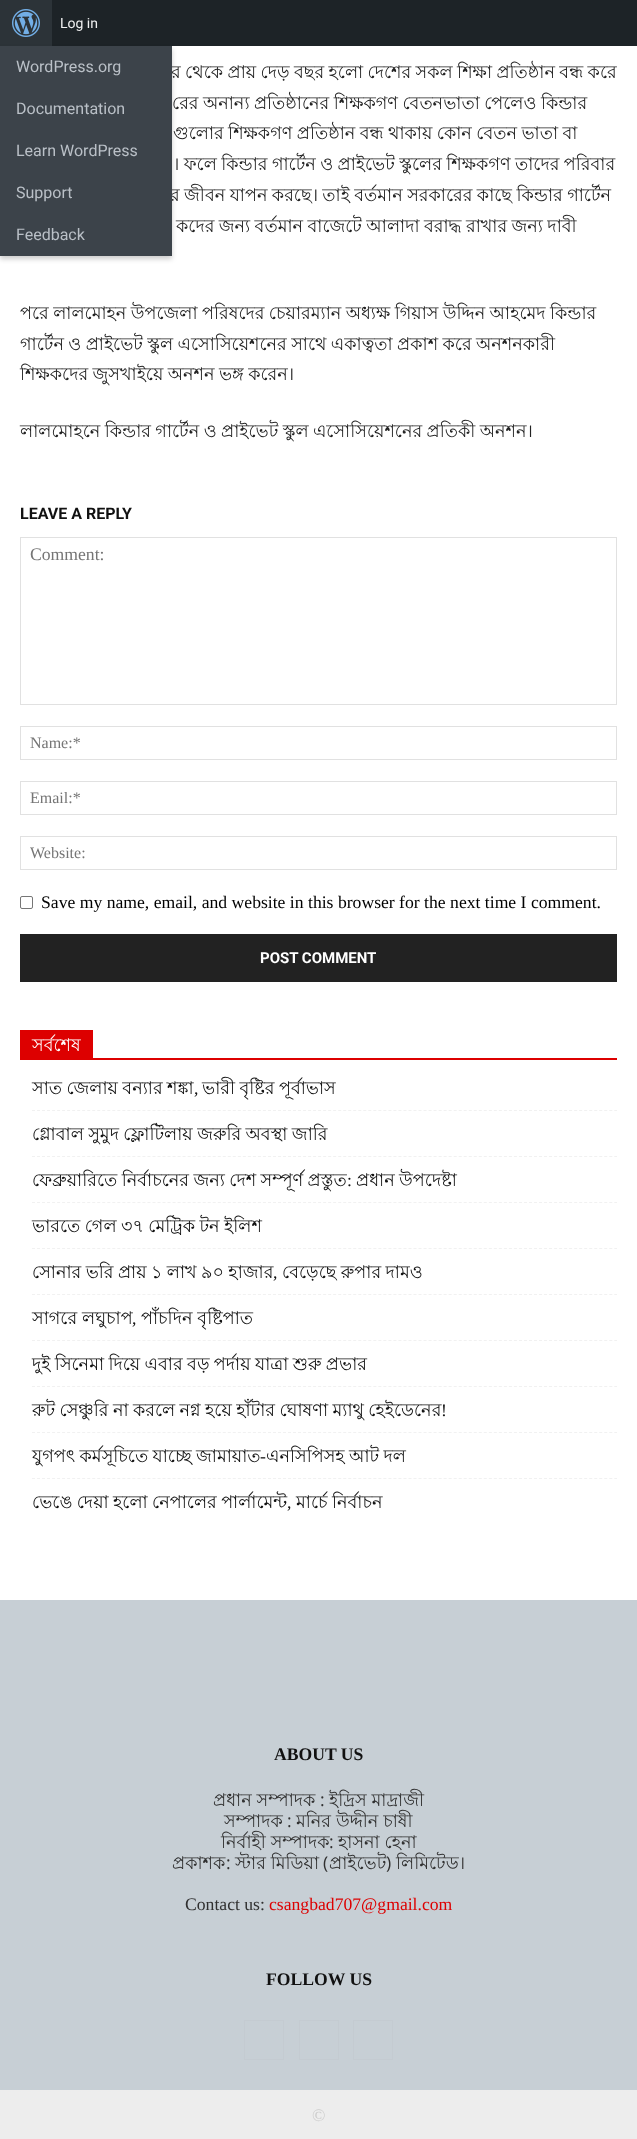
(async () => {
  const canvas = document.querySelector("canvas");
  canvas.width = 637;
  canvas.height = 2139;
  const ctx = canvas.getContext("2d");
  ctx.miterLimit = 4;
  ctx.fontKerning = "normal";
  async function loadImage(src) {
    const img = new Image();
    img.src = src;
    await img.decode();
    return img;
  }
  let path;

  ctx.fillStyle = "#ffffff";
  ctx.fillRect(0, 0, 637, 2139);
  ctx.fillStyle = "#1d2327";
  ctx.fillRect(52, 0, 585, 46);
  ctx.fillStyle = "#2c3338";
  ctx.fillRect(0, 0, 52, 46);
  ctx.drawImage(await loadImage("img/1.png"), 12, 9, 28, 28);
  ctx.fillStyle = "rgba(0, 0, 0, 0.2)";
  ctx.filter = "blur(2.5px)";
  ctx.beginPath();
  ctx.rect(0, 49, 172, 210);
  ctx.fill();
  ctx.filter = "none";
  ctx.strokeStyle = "#e1e1e1";
  ctx.strokeRect(20.5, 537.5, 596, 167);
  ctx.strokeRect(20.5, 726.5, 596, 33);
  ctx.strokeRect(20.5, 781.5, 596, 33);
  ctx.strokeRect(20.5, 836.5, 596, 33);
  ctx.beginPath();
  ctx.roundRect(20.5, 896.5, 12, 12, 1.5);
  ctx.strokeStyle = "#767676";
  ctx.stroke();
  for (const [x, y, w, h, color] of [
    [20, 934, 597, 48, "#222222"],
    [20, 1058, 597, 2, "#dd0000"],
    [20, 1030, 73, 28, "#dd0000"],
  ]) {
    ctx.fillStyle = color;
    ctx.fillRect(x, y, w, h);
  }
  path = new Path2D("M32 1110.5H617");
  ctx.strokeStyle = "#f1f1f1";
  ctx.setLineDash([3, 2.02]);
  ctx.stroke(path);
  path = new Path2D("M32 1156.5H617");
  ctx.stroke(path);
  path = new Path2D("M32 1202.5H617");
  ctx.stroke(path);
  path = new Path2D("M32 1248.5H617");
  ctx.stroke(path);
  path = new Path2D("M32 1294.5H617");
  ctx.stroke(path);
  path = new Path2D("M32 1340.5H617");
  ctx.stroke(path);
  path = new Path2D("M32 1386.5H617");
  ctx.stroke(path);
  path = new Path2D("M32 1432.5H617");
  ctx.stroke(path);
  path = new Path2D("M32 1478.5H617");
  ctx.stroke(path);
  ctx.fillStyle = "#c7cfd5";
  ctx.fillRect(0, 1600, 637, 490);
  ctx.strokeStyle = "#c4cbd1";
  ctx.setLineDash([]);
  ctx.strokeRect(244.5, 2020.5, 39, 39);
  ctx.strokeRect(299.5, 2020.5, 39, 39);
  ctx.strokeRect(353.5, 2020.5, 39, 39);
  ctx.fillStyle = "#ededed";
  ctx.fillRect(0, 2090, 637, 49);
  ctx.font = "14px Roboto";
  ctx.fillStyle = "#f0f0f1";
  ctx.fillText("Log in", 60, 28);
  ctx.wordSpacing = "-0.5px";
  ctx.font = "17.65px Lohit Bengali";
  ctx.fillStyle = "#222222";
  for (const [text, x, y] of [
    ["র থেকে প্রায় দেড় বছর হলো দেশের সকল শিক্ষা প্রতিষ্ঠান বন্ধ করে", 171, 78],
    ["রের অনান্য প্রতিষ্ঠানের শিক্ষকগণ বেতনভাতা পেলেও কিন্ডার", 172, 109],
    ["গুলোর শিক্ষকগণ প্রতিষ্ঠান বন্ধ থাকায় কোন বেতন ভাতা বা", 173, 139],
    ["। ফলে কিন্ডার গার্টেন ও প্রাইভেট স্কুলের শিক্ষকগণ তাদের পরিবার", 173, 170],
    ["র জীবন যাপন করছে। তাই বর্তমান সরকারের কাছে কিন্ডার গার্টেন", 170, 201],
  ]) {
    ctx.fillText(text, x, y);
  }
  ctx.fillStyle = "#3c434a";
  ctx.fillRect(0, 46, 172, 210);
  ctx.wordSpacing = "0px";
  ctx.font = "16px Roboto";
  ctx.fillStyle = "#bac0c7";
  for (const [text, x, y] of [
    ["Feedback", 16, 240],
    ["Support", 16, 198],
    ["Learn WordPress", 16, 156],
    ["Documentation", 16, 114],
    ["WordPress.org", 16, 72],
  ]) {
    ctx.fillText(text, x, y);
  }
  ctx.wordSpacing = "-0.5px";
  ctx.font = "17.65px Lohit Bengali";
  ctx.fillStyle = "#222222";
  for (const [text, x, y] of [
    ["কদের জন্য বর্তমান বাজেটে আলাদা বরাদ্ধ রাখার জন্য দাবী", 176, 232],
    ["পরে লালমোহন উপজেলা পরিষদের চেয়ারম্যান অধ্যক্ষ গিয়াস উদ্দিন আহমেদ কিন্ডার", 20, 319],
    ["গার্টেন ও প্রাইভেট স্কুল এসোসিয়েশনের সাথে একাত্বতা প্রকাশ করে অনশনকারী", 20, 350],
    ["শিক্ষকদের জুসখাইয়ে অনশন ভঙ্গ করেন।", 20, 380],
    ["লালমোহনে কিন্ডার গার্টেন ও প্রাইভেট স্কুল এসোসিয়েশনের প্রতিকী অনশন।", 20, 437],
  ]) {
    ctx.fillText(text, x, y);
  }
  ctx.wordSpacing = "0px";
  ctx.font = "bold 16px Roboto";
  ctx.fillStyle = "#111111";
  ctx.fillText("LEAVE A REPLY", 20, 519);
  ctx.font = "17.65px Liberation Serif";
  ctx.fillStyle = "#757575";
  ctx.fillText("Comment:", 30, 560);
  ctx.font = "16px Liberation Serif";
  for (const [text, x, y] of [
    ["Name:*", 30, 748],
    ["Email:*", 30, 803],
    ["Website:", 30, 858],
  ]) {
    ctx.fillText(text, x, y);
  }
  ctx.font = "17.65px Liberation Serif";
  ctx.fillStyle = "#000000";
  ctx.fillText("Save my name, email, and website in this browser for the next time I comment.", 41, 908);
  ctx.font = "bold 15px Roboto";
  ctx.fillStyle = "#ffffff";
  ctx.fillText("POST COMMENT", 260, 963);
  ctx.font = "17.65px Lohit Bengali";
  ctx.fillText("সর্বশেষ", 32, 1051);
  ctx.wordSpacing = "-0.5px";
  ctx.fillStyle = "#111111";
  ctx.fillText("সাত জেলায় বন্যার শঙ্কা", 32, 1094);
  ctx.wordSpacing = "0px";
  ctx.font = "17.65px Liberation Serif";
  ctx.fillText(",", 194, 1094);
  ctx.wordSpacing = "-0.5px";
  ctx.font = "17.65px Lohit Bengali";
  for (const [text, x, y] of [
    ["ভারী বৃষ্টির পূর্বাভাস", 202, 1094],
    ["গ্লোবাল সুমুদ ফ্লোটিলায় জরুরি অবস্থা জারি", 32, 1140],
    ["ফেব্রুয়ারিতে নির্বাচনের জন্য দেশ সম্পূর্ণ প্রস্তুত", 32, 1186],
  ]) {
    ctx.fillText(text, x, y);
  }
  ctx.wordSpacing = "0px";
  ctx.font = "17.65px Liberation Serif";
  ctx.fillText(":", 347, 1186);
  ctx.wordSpacing = "-0.5px";
  ctx.font = "17.65px Lohit Bengali";
  for (const [text, x, y] of [
    ["প্রধান উপদেষ্টা", 356, 1186],
    ["ভারতে গেল ৩৭ মেট্রিক টন ইলিশ", 32, 1232],
    ["সোনার ভরি প্রায় ১ লাখ ৯০ হাজার", 32, 1278],
  ]) {
    ctx.fillText(text, x, y);
  }
  ctx.wordSpacing = "0px";
  ctx.font = "17.65px Liberation Serif";
  ctx.fillText(",", 273, 1278);
  ctx.wordSpacing = "-0.5px";
  ctx.font = "17.65px Lohit Bengali";
  ctx.fillText("বেড়েছে রুপার দামও", 282, 1278);
  ctx.wordSpacing = "0px";
  ctx.fillText("সাগরে লঘুচাপ", 32, 1324);
  ctx.font = "17.65px Liberation Serif";
  ctx.fillText(",", 132, 1324);
  ctx.font = "17.65px Lohit Bengali";
  ctx.fillText("পাঁচদিন বৃষ্টিপাত", 141, 1324);
  ctx.wordSpacing = "-0.5px";
  ctx.fillText("দুই সিনেমা দিয়ে এবার বড় পর্দায় যাত্রা শুরু প্রভার", 32, 1370);
  ctx.fillText("রুট সেঞ্চুরি না করলে নগ্ন হয়ে হাঁটার ঘোষণা ম্যাথু হেইডেনের", 32, 1416);
  ctx.wordSpacing = "0px";
  ctx.font = "17.65px Liberation Serif";
  ctx.fillText("!", 441, 1416);
  ctx.wordSpacing = "-0.5px";
  ctx.font = "17.65px Lohit Bengali";
  ctx.fillText("যুগপৎ কর্মসূচিতে যাচ্ছে জামায়াত", 32, 1462);
  ctx.wordSpacing = "0px";
  ctx.font = "17.65px Liberation Serif";
  ctx.fillText("-", 260, 1462);
  ctx.wordSpacing = "-0.5px";
  ctx.font = "17.65px Lohit Bengali";
  ctx.fillText("এনসিপিসহ আট দল", 266, 1462);
  ctx.fillText("ভেঙে দেয়া হলো নেপালের পার্লামেন্ট", 32, 1508);
  ctx.wordSpacing = "0px";
  ctx.font = "17.65px Liberation Serif";
  ctx.fillText(",", 287, 1508);
  ctx.wordSpacing = "-0.5px";
  ctx.font = "17.65px Lohit Bengali";
  ctx.fillText("মার্চে নির্বাচন", 296, 1508);
  ctx.wordSpacing = "0px";
  ctx.font = "bold 17.65px Liberation Serif";
  ctx.fillText("ABOUT US", 274, 1760);
  ctx.font = "17.65px Lohit Bengali";
  ctx.fillStyle = "#303030";
  ctx.fillText("প্রধান সম্পাদক", 213, 1806);
  ctx.font = "17.65px Open Sans";
  ctx.fillText(":", 320, 1806);
  ctx.font = "17.65px Lohit Bengali";
  ctx.fillText("ইদ্রিস মাদ্রাজী", 329, 1806);
  ctx.fillText("সম্পাদক", 224, 1827);
  ctx.font = "17.65px Open Sans";
  ctx.fillText(":", 287, 1827);
  ctx.font = "17.65px Lohit Bengali";
  ctx.fillText("মনির উদ্দীন চাষী", 296, 1827);
  ctx.fillText("নির্বাহী সম্পাদক", 221, 1848);
  ctx.font = "17.65px Open Sans";
  ctx.fillText(":", 329, 1848);
  ctx.font = "17.65px Lohit Bengali";
  ctx.fillText("হাসনা হেনা", 338, 1848);
  ctx.fillText("প্রকাশক", 172, 1869);
  ctx.font = "17.65px Open Sans";
  ctx.fillText(":", 226, 1869);
  ctx.font = "17.65px Lohit Bengali";
  ctx.fillText("স্টার মিডিয়া", 235, 1869);
  ctx.font = "17.65px Open Sans";
  ctx.fillText("(", 323, 1869);
  ctx.font = "17.65px Lohit Bengali";
  ctx.fillText("প্রাইভেট", 329, 1869);
  ctx.font = "17.65px Open Sans";
  ctx.fillText(")", 386, 1869);
  ctx.font = "17.65px Lohit Bengali";
  ctx.fillText("লিমিটেড।", 396, 1869);
  ctx.font = "17.65px Liberation Serif";
  ctx.fillText("Contact us:", 185, 1910);
  ctx.fillStyle = "#dd0000";
  ctx.fillText("csangbad707@gmail.com", 269, 1910);
  ctx.font = "bold 17.65px Liberation Serif";
  ctx.fillStyle = "#111111";
  ctx.fillText("FOLLOW US", 266, 1985);
  ctx.font = "17.65px Liberation Serif";
  ctx.fillStyle = "#cccccc";
  ctx.fillText("©", 312, 2121);
})();
